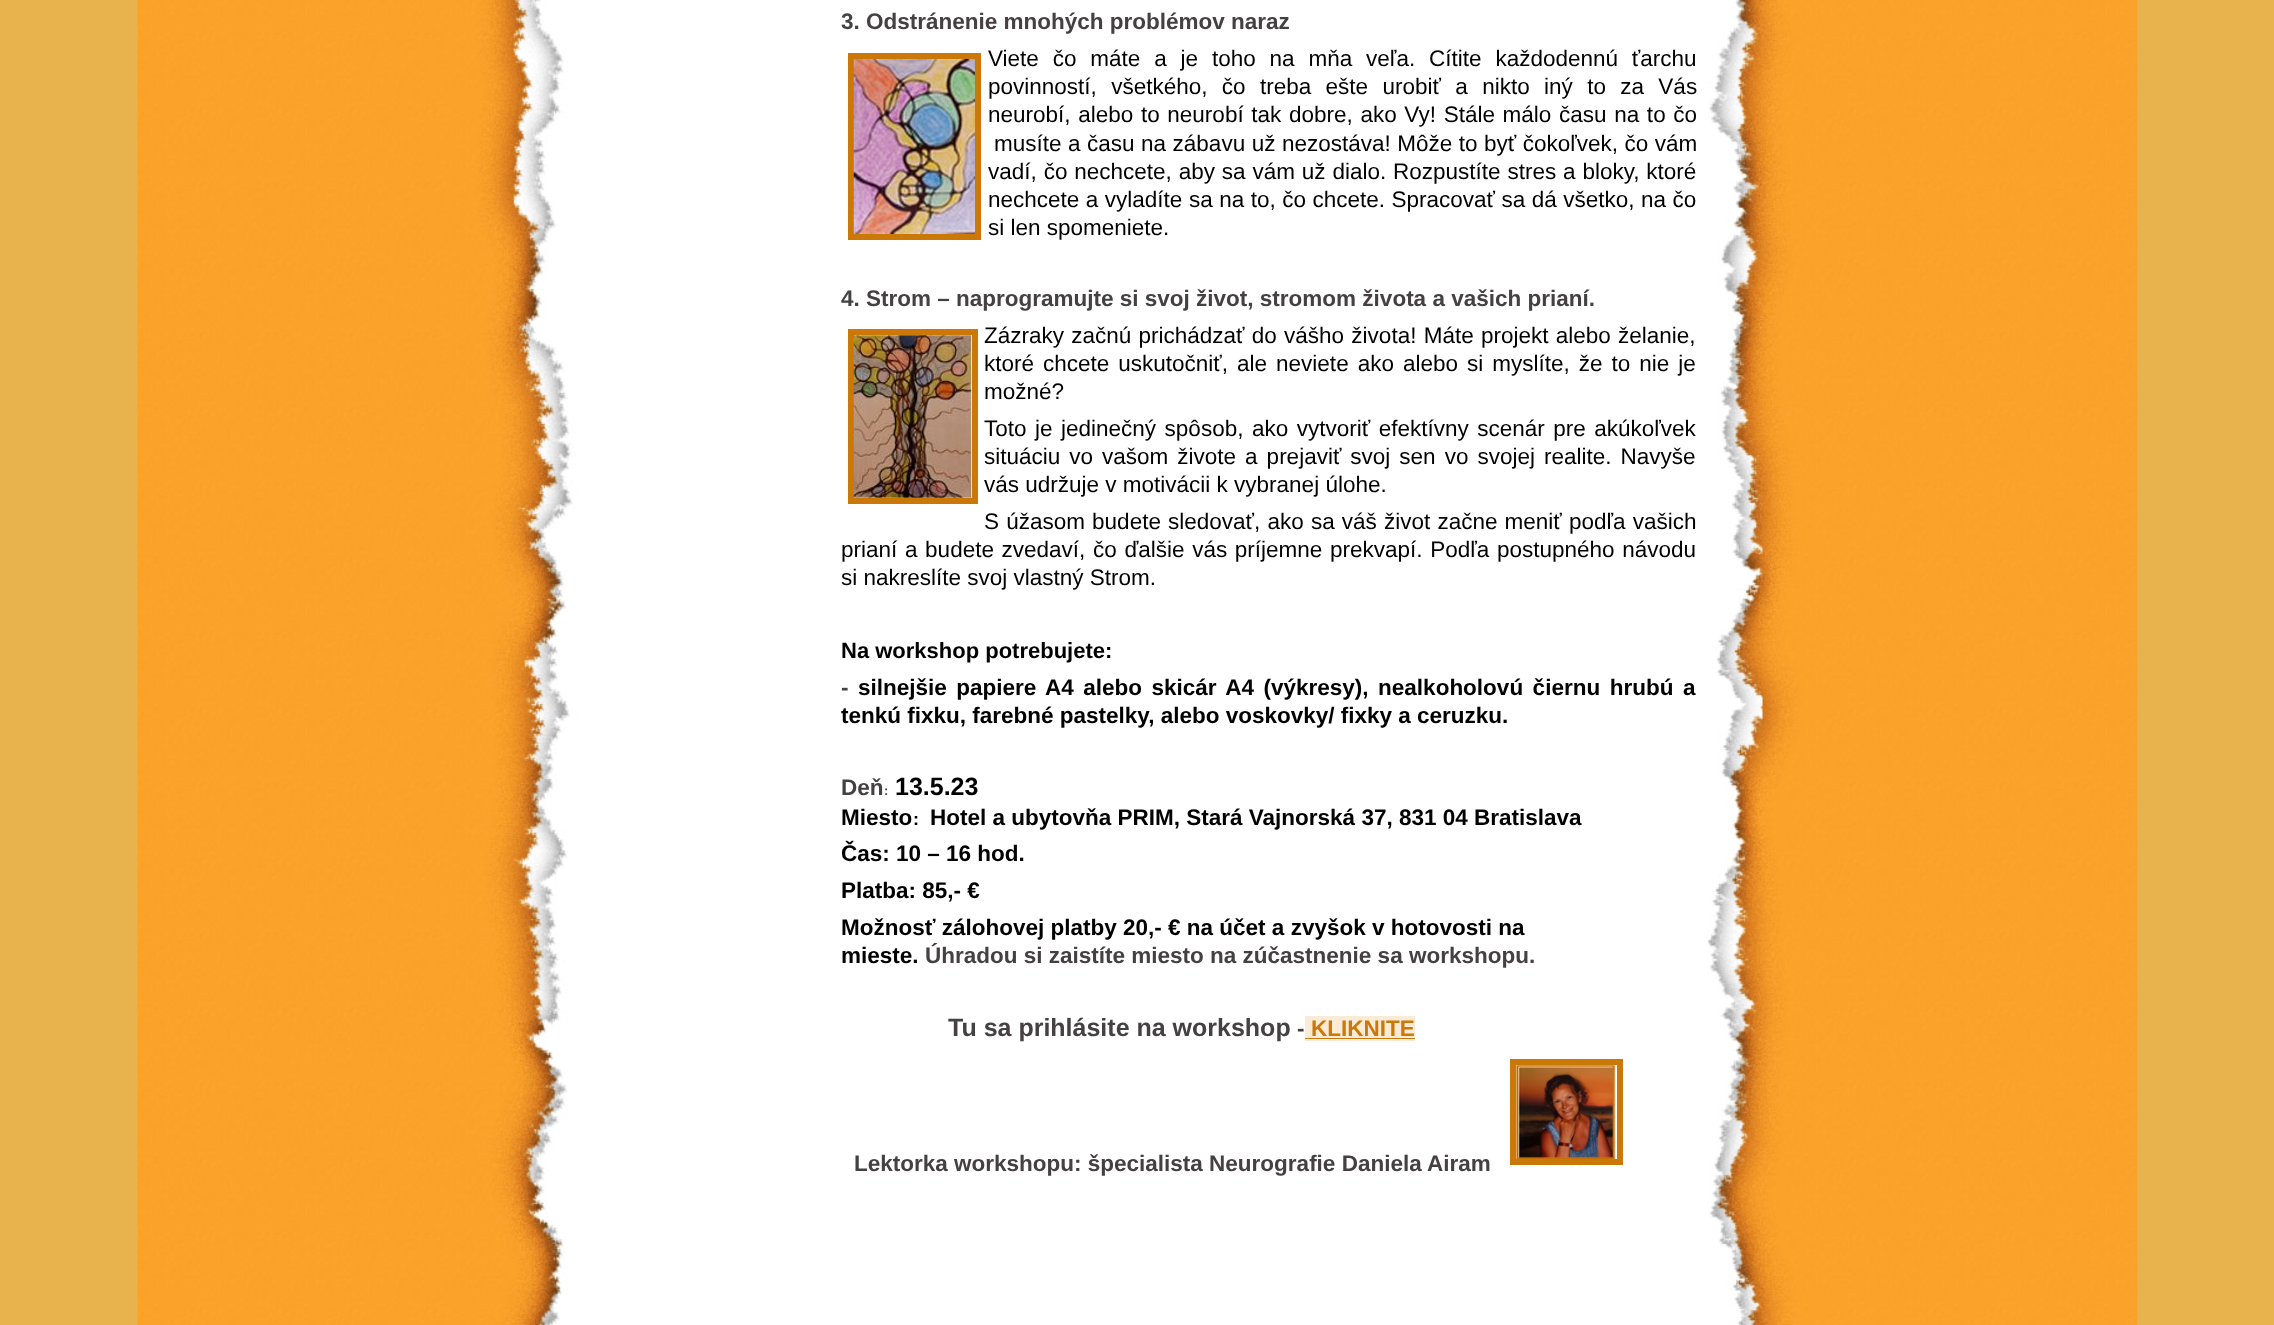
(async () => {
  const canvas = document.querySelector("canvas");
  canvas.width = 2274;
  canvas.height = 1325;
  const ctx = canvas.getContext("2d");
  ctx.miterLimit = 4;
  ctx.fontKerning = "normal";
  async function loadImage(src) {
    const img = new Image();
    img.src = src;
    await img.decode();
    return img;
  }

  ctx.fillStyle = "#e8b24c";
  ctx.fillRect(0, 0, 2274, 1325);
  ctx.drawImage(await loadImage("img/1.png"), 137, 0, 2001, 1325);
  ctx.strokeStyle = "#ca7808";
  ctx.lineWidth = 6;
  ctx.strokeRect(851, 56, 127, 181);
  ctx.drawImage(await loadImage("img/2.png"), 853, 59, 122, 175);
  ctx.strokeRect(851, 332, 124, 169);
  ctx.drawImage(await loadImage("img/3.png"), 853, 335, 119, 163);
  ctx.fillStyle = "#faebd7";
  ctx.fillRect(1305, 1016, 110, 25);
  ctx.fillStyle = "#ca7808";
  ctx.fillRect(1305, 1038, 110, 1);
  ctx.strokeRect(1513, 1062, 107, 100);
  ctx.drawImage(await loadImage("img/4.png"), 1516, 1065, 100, 94);
  ctx.font = "bold 22.5px Liberation Sans";
  ctx.fillStyle = "#454143";
  ctx.fillText("3. Odstránenie mnohých problémov naraz", 841, 29);
  ctx.wordSpacing = "7.6px";
  ctx.font = "22.5px Liberation Sans";
  ctx.fillStyle = "#000000";
  ctx.fillText("Viete čo máte a je toho na mňa veľa. Cítite každodennú ťarchu", 988, 66);
  ctx.wordSpacing = "8.1px";
  ctx.fillText("povinností, všetkého, čo treba ešte urobiť a nikto iný to za Vás", 988, 94);
  ctx.wordSpacing = "1.4px";
  ctx.fillText("neurobí, alebo to neurobí tak dobre, ako Vy! Stále málo času na to čo", 988, 122);
  ctx.wordSpacing = "0.25px";
  ctx.fillText("musíte a času na zábavu už nezostáva! Môže to byť čokoľvek, čo vám", 994, 151);
  ctx.wordSpacing = "0.6px";
  ctx.fillText("vadí, čo nechcete, aby sa vám už dialo. Rozpustíte stres a bloky, ktoré", 988, 179);
  ctx.wordSpacing = "0.25px";
  ctx.fillText("nechcete a vyladíte sa na to, čo chcete. Spracovať sa dá všetko, na čo", 988, 207);
  ctx.wordSpacing = "0px";
  ctx.fillText("si len spomeniete.", 988, 235);
  ctx.font = "bold 22.5px Liberation Sans";
  ctx.fillStyle = "#454143";
  ctx.fillText("4. Strom – naprogramujte si svoj život, stromom života a vašich prianí.", 841, 306);
  ctx.wordSpacing = "1px";
  ctx.font = "22.5px Liberation Sans";
  ctx.fillStyle = "#000000";
  ctx.fillText("Zázraky začnú prichádzať do vášho života! Máte projekt alebo želanie,", 984, 343);
  ctx.wordSpacing = "2.75px";
  ctx.fillText("ktoré chcete uskutočniť, ale neviete ako alebo si myslíte, že to nie je", 984, 371);
  ctx.wordSpacing = "0px";
  ctx.fillText("možné?", 984, 399);
  ctx.wordSpacing = "2.25px";
  ctx.fillText("Toto je jedinečný spôsob, ako vytvoriť efektívny scenár pre akúkoľvek", 984, 436);
  ctx.wordSpacing = "2.75px";
  ctx.fillText("situáciu vo vašom živote a prejaviť svoj sen vo svojej realite. Navyše", 984, 464);
  ctx.wordSpacing = "0px";
  ctx.fillText("vás udržuje v motivácii k vybranej úlohe.", 984, 492);
  ctx.wordSpacing = "0.9px";
  ctx.fillText("S úžasom budete sledovať, ako sa váš život začne meniť podľa vašich", 984, 529);
  ctx.wordSpacing = "1.4px";
  ctx.fillText("prianí a budete zvedaví, čo ďalšie vás príjemne prekvapí. Podľa postupného návodu", 841, 557);
  ctx.wordSpacing = "0px";
  ctx.fillText("si nakreslíte svoj vlastný Strom.", 841, 585);
  ctx.font = "bold 22px Liberation Sans";
  ctx.fillText("Na workshop potrebujete:", 841, 658);
  ctx.font = "bold 22.5px Liberation Sans";
  ctx.fillStyle = "#454143";
  ctx.fillText("-", 841, 695);
  ctx.wordSpacing = "3.25px";
  ctx.fillStyle = "#000000";
  ctx.fillText("silnejšie papiere A4 alebo skicár A4 (výkresy), nealkoholovú čiernu hrubú a", 858, 695);
  ctx.wordSpacing = "0px";
  ctx.fillText("tenkú fixku, farebné pastelky, alebo voskovky/ fixky a ceruzku.", 841, 723);
  ctx.fillStyle = "#454143";
  ctx.fillText("Deň", 841, 795);
  ctx.font = "bold 13px Liberation Sans";
  ctx.fillText(":", 884, 795);
  ctx.font = "bold 25px Liberation Sans";
  ctx.fillStyle = "#000000";
  ctx.fillText("13.5.23", 895, 795);
  ctx.font = "bold 22.5px Liberation Sans";
  ctx.fillText("Miesto", 841, 825);
  ctx.font = "bold 18px Liberation Sans";
  ctx.fillText(":", 913, 825);
  ctx.font = "bold 22.5px Liberation Sans";
  for (const [text, x, y] of [
    ["Hotel a ubytovňa PRIM, Stará Vajnorská 37, 831 04 Bratislava", 930, 825],
    ["Čas: 10 – 16 hod.", 841, 861],
    ["Platba: 85,- €", 841, 898],
    ["Možnosť zálohovej platby 20,- € na účet a zvyšok v hotovosti na", 841, 935],
    ["mieste.", 841, 963],
  ]) {
    ctx.fillText(text, x, y);
  }
  ctx.fillStyle = "#454143";
  ctx.fillText("Úhradou si zaistíte miesto na zúčastnenie sa workshopu.", 925, 963);
  ctx.font = "bold 25px Liberation Sans";
  ctx.fillText("Tu sa prihlásite na workshop", 948, 1036);
  ctx.font = "bold 22.5px Liberation Sans";
  ctx.fillText("-", 1297, 1036);
  ctx.fillStyle = "#ca7808";
  ctx.fillText("KLIKNITE", 1311, 1036);
  ctx.fillStyle = "#454143";
  ctx.fillText("Lektorka workshopu: špecialista Neurografie Daniela Airam", 854, 1171);
})();
